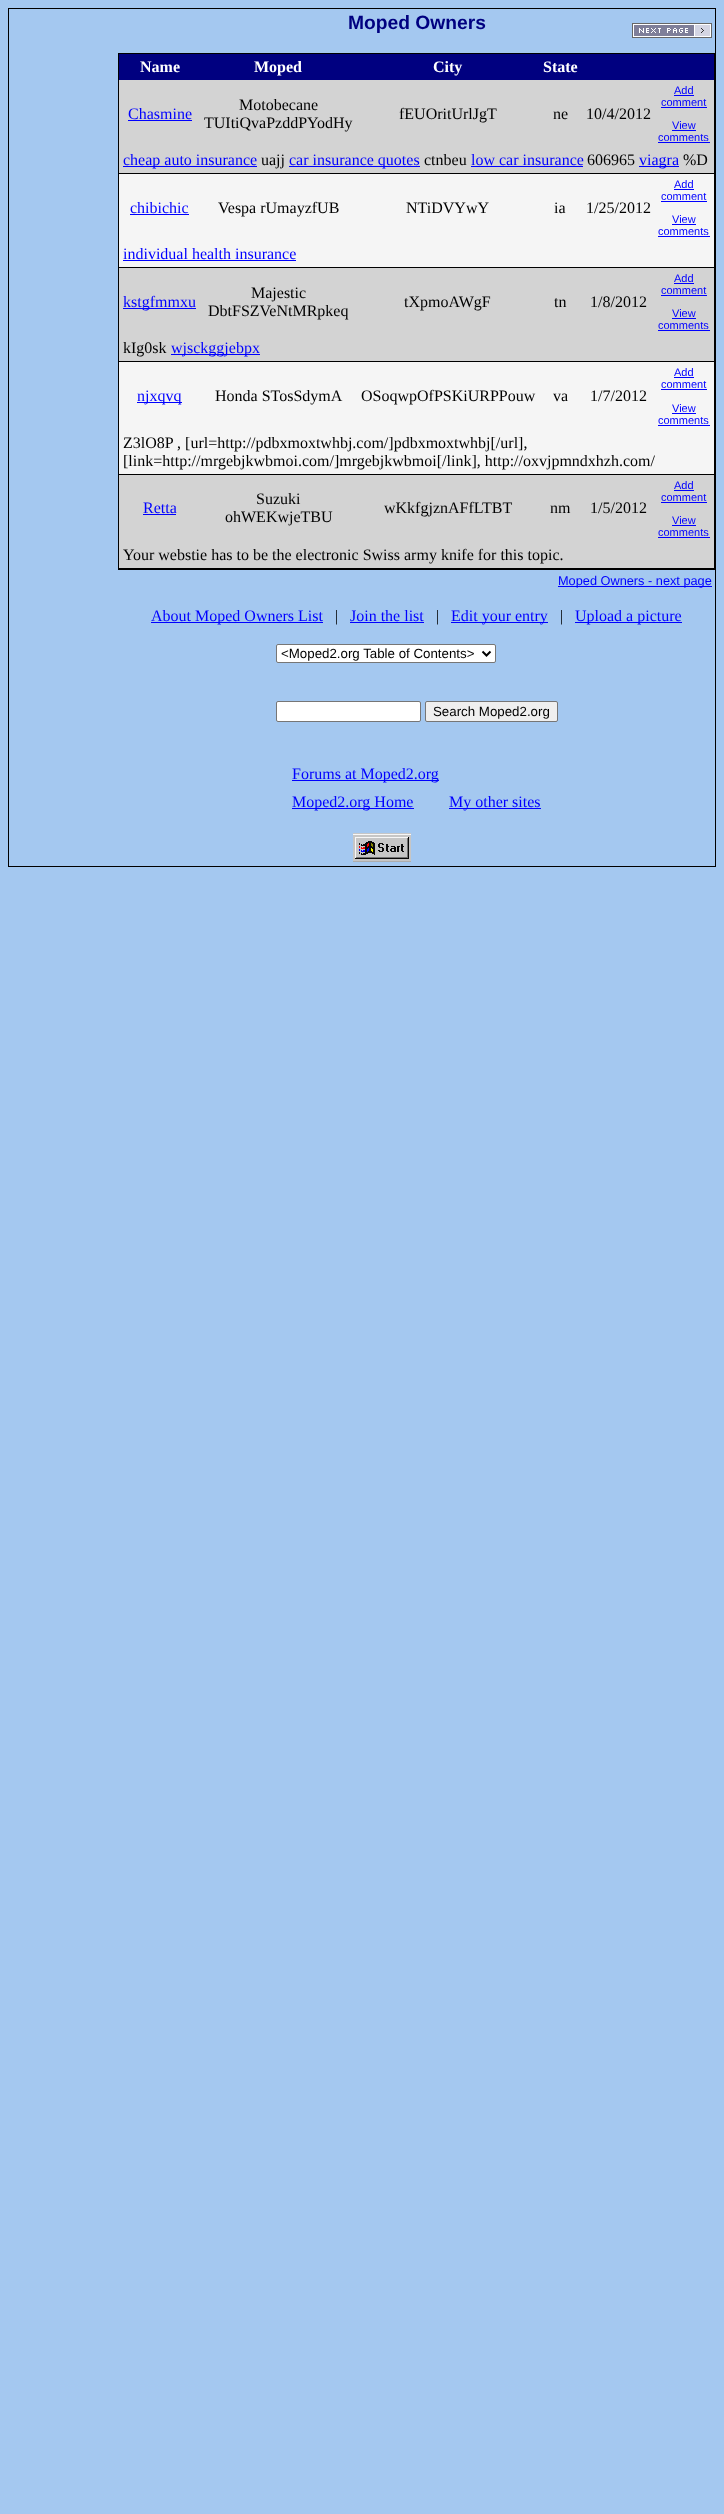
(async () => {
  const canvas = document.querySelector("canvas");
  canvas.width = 724;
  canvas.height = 2514;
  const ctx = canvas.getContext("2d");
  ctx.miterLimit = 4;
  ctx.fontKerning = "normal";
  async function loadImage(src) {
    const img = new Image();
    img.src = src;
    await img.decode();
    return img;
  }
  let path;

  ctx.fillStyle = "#a4c8f0";
  ctx.fillRect(0, 0, 724, 2514);
  ctx.strokeStyle = "#000000";
  ctx.strokeRect(8.5, 8.5, 707, 858);
  ctx.drawImage(await loadImage("img/1.png"), 632, 23, 80, 15);
  ctx.strokeRect(118.5, 53.5, 596, 516);
  for (const [x, y, w, h, color] of [
    [119, 54, 595, 26, "#000080"],
    [119, 80, 595, 93, "#d3d3d3"],
    [128, 120, 64, 1, "#0000ff"],
    [674, 95, 20, 1, "#0000ff"],
    [661, 107, 46, 1, "#0000ff"],
    [672, 130, 24, 1, "#0000ff"],
    [658, 142, 52, 1, "#0000ff"],
    [119, 173, 595, 1, "#000000"],
    [123, 166, 134, 1, "#0000ff"],
    [289, 166, 131, 1, "#0000ff"],
    [471, 166, 112, 1, "#0000ff"],
    [639, 166, 40, 1, "#0000ff"],
    [119, 174, 595, 93, "#f5f5f5"],
    [130, 214, 59, 1, "#0000ff"],
    [674, 189, 20, 1, "#0000ff"],
    [661, 201, 46, 1, "#0000ff"],
    [672, 224, 24, 1, "#0000ff"],
    [658, 236, 52, 1, "#0000ff"],
    [119, 267, 595, 1, "#000000"],
    [123, 260, 173, 1, "#0000ff"],
    [119, 268, 595, 93, "#d3d3d3"],
    [123, 308, 73, 1, "#0000ff"],
    [674, 283, 20, 1, "#0000ff"],
    [661, 295, 46, 1, "#0000ff"],
    [672, 318, 24, 1, "#0000ff"],
    [658, 330, 52, 1, "#0000ff"],
    [119, 361, 595, 1, "#000000"],
    [171, 354, 89, 1, "#0000ff"],
    [119, 362, 595, 112, "#f5f5f5"],
    [137, 402, 45, 1, "#0000ff"],
    [674, 377, 20, 1, "#0000ff"],
    [661, 389, 46, 1, "#0000ff"],
    [672, 413, 24, 1, "#0000ff"],
    [658, 425, 52, 1, "#0000ff"],
    [119, 474, 595, 1, "#000000"],
    [119, 475, 595, 93, "#d3d3d3"],
    [143, 514, 33, 1, "#0000ff"],
    [674, 490, 20, 1, "#0000ff"],
    [661, 502, 46, 1, "#0000ff"],
    [672, 525, 24, 1, "#0000ff"],
    [658, 537, 52, 1, "#0000ff"],
    [119, 568, 595, 1, "#000000"],
    [558, 586, 154, 1, "#0000ff"],
    [151, 622, 172, 1, "#0000ff"],
    [350, 622, 74, 1, "#0000ff"],
    [451, 622, 97, 1, "#0000ff"],
    [575, 622, 107, 1, "#0000ff"],
  ]) {
    ctx.fillStyle = color;
    ctx.fillRect(x, y, w, h);
  }
  ctx.fillStyle = "#ffffff";
  ctx.beginPath();
  ctx.roundRect(276.5, 644.5, 219, 18, 1.5);
  ctx.fill();
  ctx.strokeStyle = "#767676";
  ctx.stroke();
  path = new Path2D("M482.5 651.5L486.5 655.5L490.5 651.5");
  ctx.strokeStyle = "#000000";
  ctx.lineWidth = 2;
  ctx.stroke(path);
  ctx.beginPath();
  ctx.roundRect(276.5, 701.5, 144, 20, 1.5);
  ctx.fill();
  ctx.strokeStyle = "#767676";
  ctx.lineWidth = 1;
  ctx.stroke();
  ctx.fillStyle = "#efefef";
  ctx.beginPath();
  ctx.roundRect(425.5, 701.5, 132, 20, 1.5);
  ctx.fill();
  ctx.stroke();
  for (const [x, y, w, h, color] of [
    [292, 780, 147, 1, "#0000ff"],
    [292, 808, 122, 1, "#0000ff"],
    [449, 808, 92, 1, "#0000ff"],
  ]) {
    ctx.fillStyle = color;
    ctx.fillRect(x, y, w, h);
  }
  ctx.drawImage(await loadImage("img/2.png"), 353, 833, 58, 29);
  ctx.font = "bold 19.25px Liberation Sans";
  ctx.fillStyle = "#000080";
  ctx.fillText("Moped Owners", 348, 29);
  ctx.font = "bold 16px Liberation Serif";
  ctx.fillStyle = "#ffffff";
  for (const [text, x, y] of [
    ["Name", 140, 72],
    ["Moped", 254, 72],
    ["City", 433, 72],
    ["State", 543, 72],
  ]) {
    ctx.fillText(text, x, y);
  }
  ctx.font = "16px Liberation Serif";
  ctx.fillStyle = "#0000ff";
  ctx.fillText("Chasmine", 128, 119);
  ctx.fillStyle = "#000000";
  for (const [text, x, y] of [
    ["Motobecane", 239, 110],
    ["TUItiQvaPzddPYodHy", 204, 128],
    ["fEUOritUrlJgT", 399, 119],
    ["ne", 553, 119],
    ["10/4/2012", 586, 119],
  ]) {
    ctx.fillText(text, x, y);
  }
  ctx.font = "11px Liberation Sans";
  ctx.fillStyle = "#0000ff";
  for (const [text, x, y] of [
    ["Add", 674, 94],
    ["comment", 661, 106],
    ["View", 672, 129],
    ["comments", 658, 141],
  ]) {
    ctx.fillText(text, x, y);
  }
  ctx.font = "16px Liberation Serif";
  ctx.fillText("cheap auto insurance", 123, 165);
  ctx.fillStyle = "#000000";
  ctx.fillText("uajj", 261, 165);
  ctx.fillStyle = "#0000ff";
  ctx.fillText("car insurance quotes", 289, 165);
  ctx.fillStyle = "#000000";
  ctx.fillText("ctnbeu", 424, 165);
  ctx.fillStyle = "#0000ff";
  ctx.fillText("low car insurance", 471, 165);
  ctx.fillStyle = "#000000";
  ctx.fillText("606965", 587, 165);
  ctx.fillStyle = "#0000ff";
  ctx.fillText("viagra", 639, 165);
  ctx.fillStyle = "#000000";
  ctx.fillText("%D", 683, 165);
  ctx.fillStyle = "#0000ff";
  ctx.fillText("chibichic", 130, 213);
  ctx.fillStyle = "#000000";
  for (const [text, x, y] of [
    ["Vespa rUmayzfUB", 218, 213],
    ["NTiDVYwY", 406, 213],
    ["ia", 554, 213],
    ["1/25/2012", 586, 213],
  ]) {
    ctx.fillText(text, x, y);
  }
  ctx.font = "11px Liberation Sans";
  ctx.fillStyle = "#0000ff";
  for (const [text, x, y] of [
    ["Add", 674, 188],
    ["comment", 661, 200],
    ["View", 672, 223],
    ["comments", 658, 235],
  ]) {
    ctx.fillText(text, x, y);
  }
  ctx.font = "16px Liberation Serif";
  ctx.fillText("individual health insurance", 123, 259);
  ctx.fillText("kstgfmmxu", 123, 307);
  ctx.fillStyle = "#000000";
  for (const [text, x, y] of [
    ["Majestic", 251, 298],
    ["DbtFSZVeNtMRpkeq", 208, 316],
    ["tXpmoAWgF", 404, 307],
    ["tn", 554, 307],
    ["1/8/2012", 590, 307],
  ]) {
    ctx.fillText(text, x, y);
  }
  ctx.font = "11px Liberation Sans";
  ctx.fillStyle = "#0000ff";
  for (const [text, x, y] of [
    ["Add", 674, 282],
    ["comment", 661, 294],
    ["View", 672, 317],
    ["comments", 658, 329],
  ]) {
    ctx.fillText(text, x, y);
  }
  ctx.font = "16px Liberation Serif";
  ctx.fillStyle = "#000000";
  ctx.fillText("kIg0sk", 123, 353);
  ctx.fillStyle = "#0000ff";
  ctx.fillText("wjsckggjebpx", 171, 353);
  ctx.fillText("njxqvq", 137, 401);
  ctx.fillStyle = "#000000";
  for (const [text, x, y] of [
    ["Honda STosSdymA", 215, 401],
    ["OSoqwpOfPSKiURPPouw", 361, 401],
    ["va", 553, 401],
    ["1/7/2012", 590, 401],
  ]) {
    ctx.fillText(text, x, y);
  }
  ctx.font = "11px Liberation Sans";
  ctx.fillStyle = "#0000ff";
  for (const [text, x, y] of [
    ["Add", 674, 376],
    ["comment", 661, 388],
    ["View", 672, 412],
    ["comments", 658, 424],
  ]) {
    ctx.fillText(text, x, y);
  }
  ctx.font = "16px Liberation Serif";
  ctx.fillStyle = "#000000";
  ctx.fillText("Z3lO8P , [url=http://pdbxmoxtwhbj.com/]pdbxmoxtwhbj[/url],", 123, 448);
  ctx.fillText("[link=http://mrgebjkwbmoi.com/]mrgebjkwbmoi[/link], http://oxvjpmndxhzh.com/", 123, 466);
  ctx.fillStyle = "#0000ff";
  ctx.fillText("Retta", 143, 513);
  ctx.fillStyle = "#000000";
  for (const [text, x, y] of [
    ["Suzuki", 256, 504],
    ["ohWEKwjeTBU", 225, 522],
    ["wKkfgjznAFfLTBT", 384, 513],
    ["nm", 550, 513],
    ["1/5/2012", 590, 513],
  ]) {
    ctx.fillText(text, x, y);
  }
  ctx.font = "11px Liberation Sans";
  ctx.fillStyle = "#0000ff";
  for (const [text, x, y] of [
    ["Add", 674, 489],
    ["comment", 661, 501],
    ["View", 672, 524],
    ["comments", 658, 536],
  ]) {
    ctx.fillText(text, x, y);
  }
  ctx.font = "16px Liberation Serif";
  ctx.fillStyle = "#000000";
  ctx.fillText("Your webstie has to be the electronic Swiss army knife for this topic.", 123, 560);
  ctx.font = "12.75px Liberation Sans";
  ctx.fillStyle = "#0000ff";
  ctx.fillText("Moped Owners - next page", 558, 585);
  ctx.font = "16px Liberation Serif";
  ctx.fillText("About Moped Owners List", 151, 621);
  ctx.fillStyle = "#000000";
  ctx.fillText("|", 335, 621);
  ctx.fillStyle = "#0000ff";
  ctx.fillText("Join the list", 350, 621);
  ctx.fillStyle = "#000000";
  ctx.fillText("|", 436, 621);
  ctx.fillStyle = "#0000ff";
  ctx.fillText("Edit your entry", 451, 621);
  ctx.fillStyle = "#000000";
  ctx.fillText("|", 560, 621);
  ctx.fillStyle = "#0000ff";
  ctx.fillText("Upload a picture", 575, 621);
  ctx.font = "13.3px Liberation Sans";
  ctx.fillStyle = "#000000";
  ctx.fillText("<Moped2.org Table of Contents>", 281, 658);
  ctx.fillText("Search Moped2.org", 433, 716);
  ctx.font = "16px Liberation Serif";
  ctx.fillStyle = "#0000ff";
  for (const [text, x, y] of [
    ["Forums at Moped2.org", 292, 779],
    ["Moped2.org Home", 292, 807],
    ["My other sites", 449, 807],
  ]) {
    ctx.fillText(text, x, y);
  }
})();
